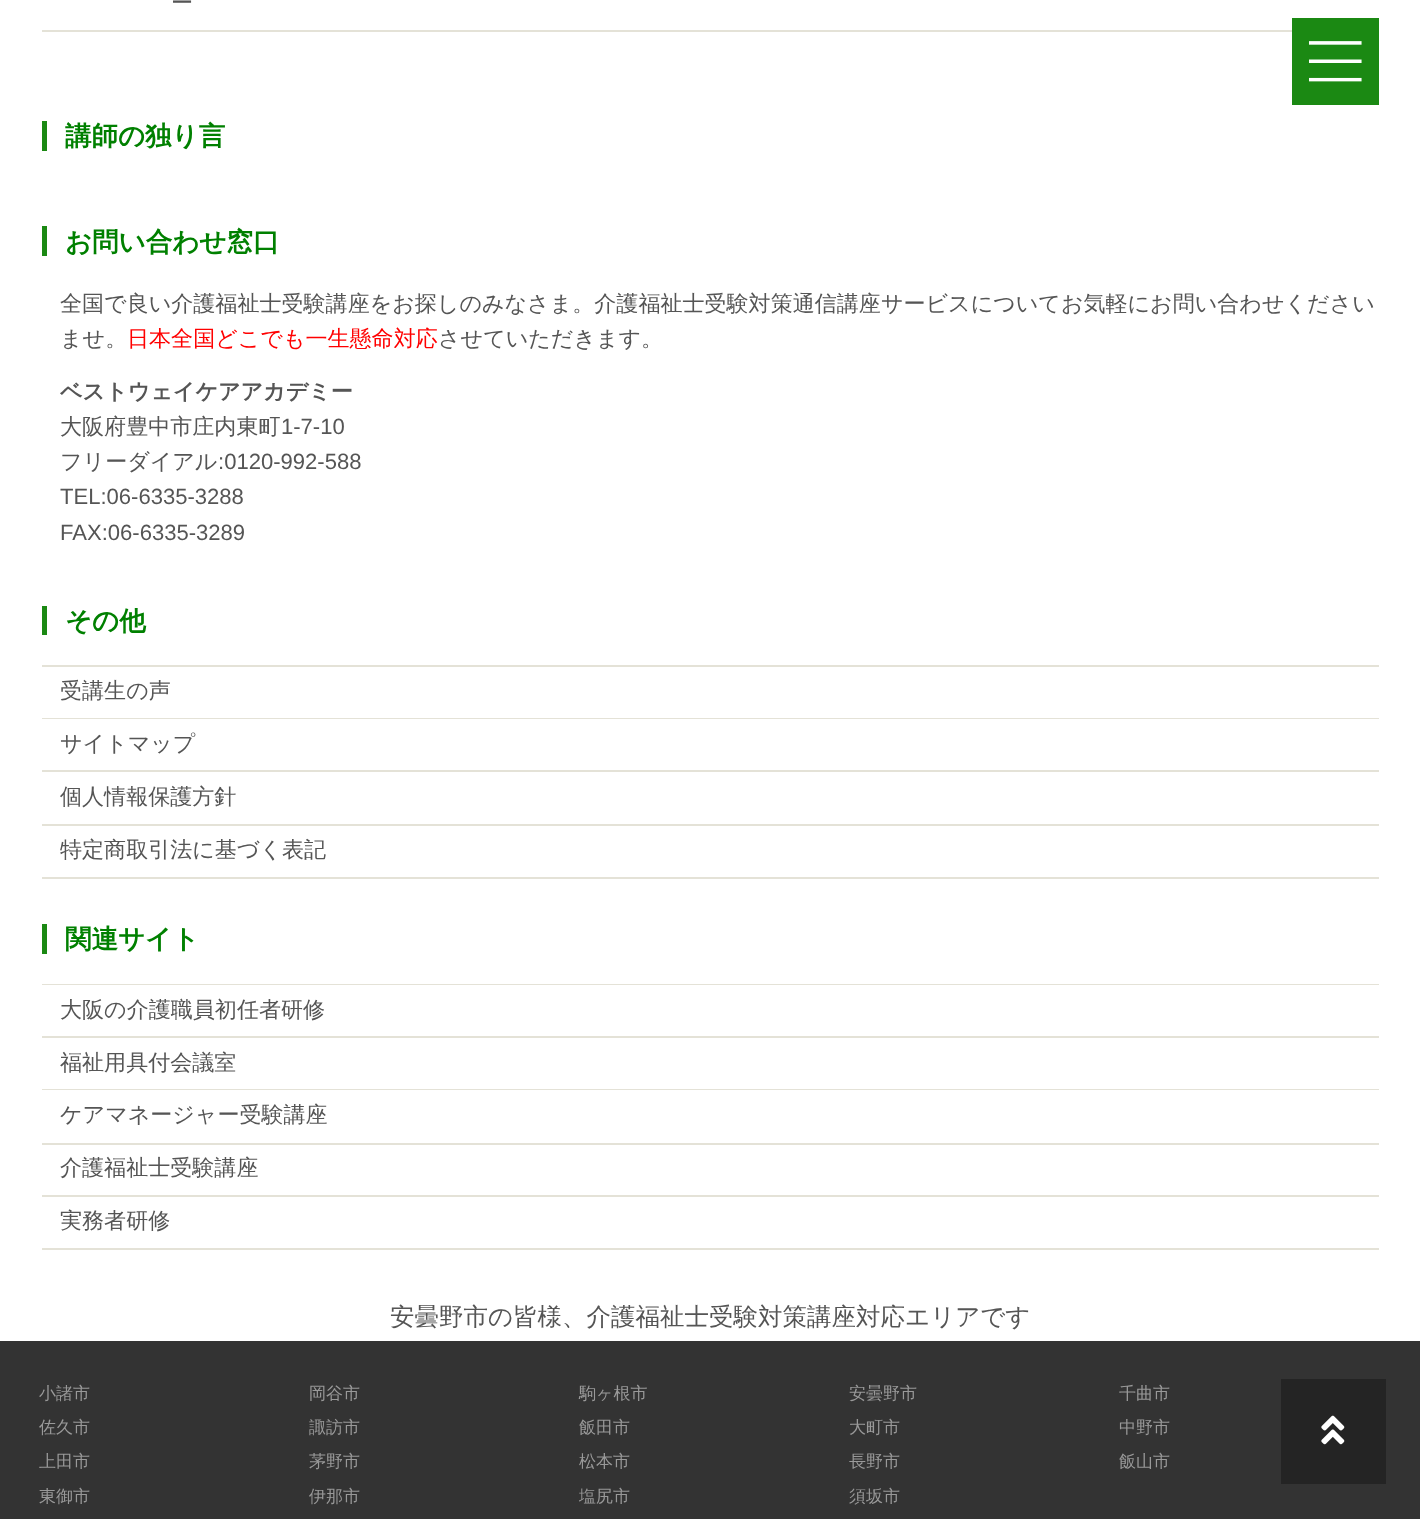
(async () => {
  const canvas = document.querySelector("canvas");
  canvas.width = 1420;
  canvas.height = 1519;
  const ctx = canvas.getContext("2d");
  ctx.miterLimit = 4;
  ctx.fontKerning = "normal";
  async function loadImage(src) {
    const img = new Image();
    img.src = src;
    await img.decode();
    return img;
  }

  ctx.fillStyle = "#ffffff";
  ctx.fillRect(0, 0, 1420, 1519);
  for (const [x, y, w, h, color] of [
    [42, 30, 1250, 2, "#e4e2d7"],
    [42, 121, 5, 30, "#1b8913"],
    [42, 226, 5, 30, "#1b8913"],
    [42, 606, 5, 29, "#1b8913"],
    [42, 665, 1337, 2, "#e4e2d7"],
    [42, 718, 1337, 1, "#e4e2d7"],
    [42, 770, 1337, 2, "#e4e2d7"],
    [42, 824, 1337, 2, "#e4e2d7"],
    [42, 877, 1337, 2, "#e4e2d7"],
    [42, 924, 5, 30, "#1b8913"],
    [42, 984, 1337, 1, "#e4e2d7"],
    [42, 1036, 1337, 2, "#e4e2d7"],
    [42, 1089, 1337, 1, "#e4e2d7"],
    [42, 1143, 1337, 2, "#e4e2d7"],
    [42, 1195, 1337, 2, "#e4e2d7"],
    [42, 1248, 1337, 2, "#e4e2d7"],
    [0, 1341, 1420, 178, "#333333"],
    [1292, 18, 87, 87, "#1b8913"],
  ]) {
    ctx.fillStyle = color;
    ctx.fillRect(x, y, w, h);
  }
  ctx.drawImage(await loadImage("img/1.png"), 1309, 41, 53, 41);
  ctx.fillStyle = "#242424";
  ctx.fillRect(1281, 1379, 105, 105);
  ctx.drawImage(await loadImage("img/2.png"), 1321, 1415, 24, 30);
  ctx.font = "500 22.05px WenQuanYi Zen Hei";
  ctx.fillStyle = "#555555";
  ctx.fillText("ー", 171, 10);
  ctx.font = "bold 26.5px WenQuanYi Zen Hei";
  ctx.fillStyle = "#008000";
  ctx.fillText("講師の独り言", 65, 145);
  ctx.fillText("お問い合わせ窓口", 65, 251);
  ctx.font = "500 22.05px WenQuanYi Zen Hei";
  ctx.fillStyle = "#555555";
  ctx.fillText("全国で良い介護福祉士受験講座をお探しのみなさま。介護福祉士受験対策通信講座サービスについてお気軽にお問い合わせください", 60, 311);
  ctx.fillText("ませ。", 60, 346);
  ctx.fillStyle = "#ff0000";
  ctx.fillText("日本全国どこでも一生懸命対応", 127, 346);
  ctx.fillStyle = "#555555";
  ctx.fillText("させていただきます。", 438, 346);
  ctx.font = "bold 22.05px WenQuanYi Zen Hei";
  ctx.fillText("ベストウェイケアアカデミー", 60, 399);
  ctx.font = "500 22.05px WenQuanYi Zen Hei";
  ctx.fillText("大阪府豊中市庄内東町", 60, 434);
  ctx.font = "22.05px Liberation Sans";
  ctx.fillText("1-7-10", 281, 434);
  ctx.font = "500 22.05px WenQuanYi Zen Hei";
  ctx.fillText("フリーダイアル", 60, 469);
  ctx.font = "22.05px Liberation Sans";
  for (const [text, x, y] of [
    [":0120-992-588", 218, 469],
    ["TEL:06-6335-3288", 60, 504],
    ["FAX:06-6335-3289", 60, 540],
  ]) {
    ctx.fillText(text, x, y);
  }
  ctx.font = "bold 26.5px WenQuanYi Zen Hei";
  ctx.fillStyle = "#008000";
  ctx.fillText("その他", 65, 630);
  ctx.font = "500 22.05px WenQuanYi Zen Hei";
  ctx.fillStyle = "#555555";
  for (const [text, x, y] of [
    ["受講生の声", 60, 698],
    ["サイトマップ", 60, 751],
    ["個人情報保護方針", 60, 804],
    ["特定商取引法に基づく表記", 60, 857],
  ]) {
    ctx.fillText(text, x, y);
  }
  ctx.font = "bold 26.5px WenQuanYi Zen Hei";
  ctx.fillStyle = "#008000";
  ctx.fillText("関連サイト", 65, 948);
  ctx.font = "500 22.05px WenQuanYi Zen Hei";
  ctx.fillStyle = "#555555";
  for (const [text, x, y] of [
    ["大阪の介護職員初任者研修", 60, 1017],
    ["福祉用具付会議室", 60, 1070],
    ["ケアマネージャー受験講座", 60, 1122],
    ["介護福祉士受験講座", 60, 1175],
    ["実務者研修", 60, 1228],
  ]) {
    ctx.fillText(text, x, y);
  }
  ctx.font = "500 24.5px WenQuanYi Zen Hei";
  ctx.fillText("安曇野市の皆様、介護福祉士受験対策講座対応エリアです", 390, 1325);
  ctx.font = "500 17px WenQuanYi Zen Hei";
  ctx.fillStyle = "#999999";
  for (const [text, x, y] of [
    ["小諸市", 39, 1399],
    ["佐久市", 39, 1433],
    ["上田市", 39, 1467],
    ["東御市", 39, 1502],
    ["岡谷市", 309, 1399],
    ["諏訪市", 309, 1433],
    ["茅野市", 309, 1467],
    ["伊那市", 309, 1502],
    ["駒ヶ根市", 579, 1399],
    ["飯田市", 579, 1433],
    ["松本市", 579, 1467],
    ["塩尻市", 579, 1502],
    ["安曇野市", 849, 1399],
    ["大町市", 849, 1433],
    ["長野市", 849, 1467],
    ["須坂市", 849, 1502],
    ["千曲市", 1119, 1399],
    ["中野市", 1119, 1433],
    ["飯山市", 1119, 1467],
  ]) {
    ctx.fillText(text, x, y);
  }
})();
